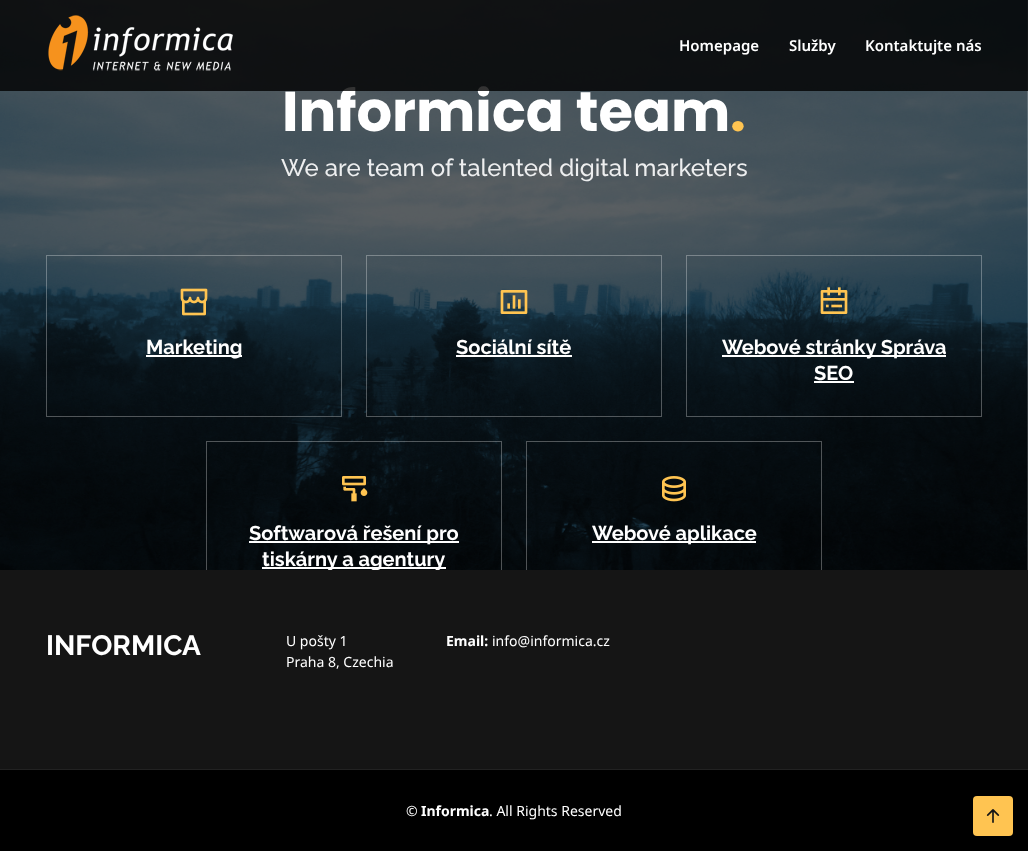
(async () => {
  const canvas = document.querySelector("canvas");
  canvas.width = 1028;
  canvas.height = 851;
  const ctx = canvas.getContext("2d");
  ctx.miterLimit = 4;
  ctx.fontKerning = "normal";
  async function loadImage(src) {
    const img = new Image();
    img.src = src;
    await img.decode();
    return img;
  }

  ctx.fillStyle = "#ffffff";
  ctx.fillRect(0, 0, 1028, 851);
  ctx.drawImage(await loadImage("img/2.png"), 0, 0, 1028, 570);
  ctx.strokeStyle = "rgba(255, 255, 255, 0.3)";
  ctx.strokeRect(46.5, 255.5, 295, 161);
  ctx.drawImage(await loadImage("img/3.png"), 180, 288, 28, 28);
  ctx.fillRect(146, 355, 96, 2);
  ctx.strokeRect(366.5, 255.5, 295, 161);
  ctx.drawImage(await loadImage("img/4.png"), 500, 290, 28, 24);
  ctx.fillRect(456, 355, 116, 2);
  ctx.strokeRect(686.5, 255.5, 295, 161);
  ctx.drawImage(await loadImage("img/5.png"), 820, 287, 28, 27);
  for (const [x, y, w, h, color] of [
    [722, 355, 224, 2, "#ffffff"],
    [814, 381, 40, 2, "#ffffff"],
    [0, 570, 1028, 199, "#151515"],
  ]) {
    ctx.fillStyle = color;
    ctx.fillRect(x, y, w, h);
  }
  ctx.save();
  ctx.beginPath();
  ctx.rect(0, 0, 1028, 570);
  ctx.clip();
  ctx.strokeRect(206.5, 441.5, 295, 161);
  ctx.restore();
  ctx.drawImage(await loadImage("img/6.png"), 342, 476, 26, 26);
  ctx.fillStyle = "#ffffff";
  ctx.fillRect(249, 541, 210, 2);
  ctx.fillRect(262, 567, 184, 2);
  ctx.save();
  ctx.beginPath();
  ctx.rect(0, 0, 1028, 570);
  ctx.clip();
  ctx.strokeRect(526.5, 441.5, 295, 161);
  ctx.restore();
  ctx.drawImage(await loadImage("img/7.png"), 662, 476, 24, 26);
  for (const [x, y, w, h, color] of [
    [592, 541, 164, 2, "#ffffff"],
    [0, 770, 1028, 81, "#000000"],
    [0, 769, 1028, 1, "#222222"],
  ]) {
    ctx.fillStyle = color;
    ctx.fillRect(x, y, w, h);
  }
  ctx.fillStyle = "#ffc451";
  ctx.beginPath();
  ctx.roundRect(973, 796, 40, 40, 4);
  ctx.fill();
  ctx.drawImage(await loadImage("img/8.png"), 986, 809, 14, 14);
  ctx.font = "bold 56px Poppins";
  ctx.fillStyle = "#ffffff";
  ctx.fillText("Informica team", 282, 131);
  ctx.fillStyle = "rgba(0, 0, 0, 0.8)";
  ctx.fillRect(0, 0, 1028, 91);
  ctx.font = "600 15px Noto Sans";
  ctx.fillStyle = "#ffffff";
  for (const [text, x, y] of [
    ["Kontaktujte nás", 865, 51],
    ["Služby", 789, 51],
    ["Homepage", 679, 51],
  ]) {
    ctx.fillText(text, x, y);
  }
  ctx.drawImage(await loadImage("img/1.png"), 48, 15, 185, 56);
  ctx.font = "bold 56px Poppins";
  ctx.fillStyle = "#ffc451";
  ctx.fillText(".", 730, 131);
  ctx.font = "500 24px Raleway";
  ctx.fillStyle = "#edeeef";
  ctx.fillText("We are team of talented digital marketers", 281, 176);
  ctx.font = "bold 20px Raleway";
  ctx.fillStyle = "#ffffff";
  for (const [text, x, y] of [
    ["Marketing", 146, 354],
    ["Sociální sítě", 456, 354],
    ["Webové stránky Správa", 722, 354],
    ["SEO", 814, 380],
    ["Softwarová řešení pro", 249, 540],
  ]) {
    ctx.fillText(text, x, y);
  }
  ctx.save();
  ctx.beginPath();
  ctx.rect(0, 0, 1028, 570);
  ctx.clip();
  ctx.fillText("tiskárny a agentury", 262, 566);
  ctx.restore();
  ctx.fillText("Webové aplikace", 592, 540);
  ctx.font = "bold 28px Raleway";
  ctx.fillText("INFORMICA", 46, 655);
  ctx.font = "14px Noto Sans";
  ctx.fillText("U pošty 1", 286, 646);
  ctx.fillText("Praha 8, Czechia", 286, 667);
  ctx.font = "bold 14px Noto Sans";
  ctx.fillText("Email:", 446, 646);
  ctx.font = "14px Noto Sans";
  ctx.fillText("info@informica.cz", 492, 646);
  ctx.fillText("©", 406, 816);
  ctx.font = "bold 14px Noto Sans";
  ctx.fillText("Informica", 421, 816);
  ctx.font = "14px Noto Sans";
  ctx.fillText(". All Rights Reserved", 489, 816);
})();
